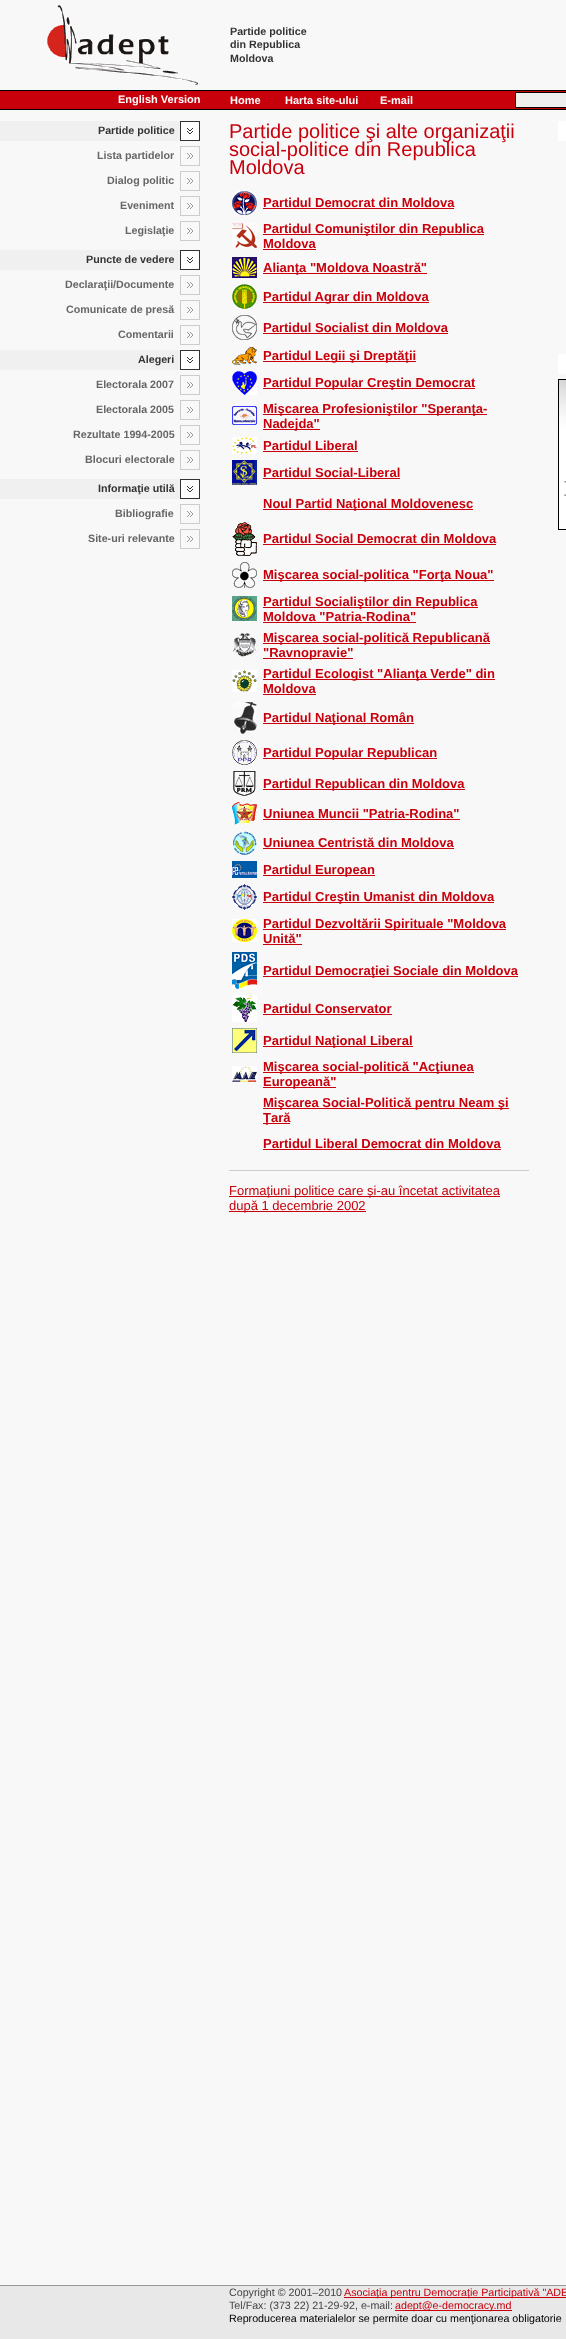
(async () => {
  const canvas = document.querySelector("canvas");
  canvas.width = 566;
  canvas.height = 2339;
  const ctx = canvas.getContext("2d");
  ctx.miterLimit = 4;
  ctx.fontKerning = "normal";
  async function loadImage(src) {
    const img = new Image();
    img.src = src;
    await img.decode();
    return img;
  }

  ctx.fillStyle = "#f8f8f8";
  ctx.fillRect(0, 0, 566, 2339);
  ctx.drawImage(await loadImage("img/1.png"), 47, 5, 151, 80);
  ctx.fillStyle = "#000000";
  ctx.fillRect(0, 90, 566, 1);
  ctx.fillStyle = "#c8000c";
  ctx.fillRect(0, 91, 566, 18);
  ctx.fillStyle = "#eeeeee";
  ctx.beginPath();
  ctx.rect(515.5, 92.5, 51, 15);
  ctx.fill();
  ctx.strokeStyle = "#000000";
  ctx.stroke();
  ctx.fillStyle = "#000000";
  ctx.fillRect(0, 109, 566, 1);
  ctx.fillStyle = "#f0f0f0";
  ctx.fillRect(0, 121, 180, 20);
  ctx.drawImage(await loadImage("img/2.png"), 180, 121, 20, 20);
  ctx.drawImage(await loadImage("img/3.png"), 180, 146, 20, 20);
  ctx.drawImage(await loadImage("img/3.png"), 180, 171, 20, 20);
  ctx.drawImage(await loadImage("img/3.png"), 180, 196, 20, 20);
  ctx.drawImage(await loadImage("img/3.png"), 180, 221, 20, 20);
  ctx.fillRect(0, 250, 180, 20);
  ctx.drawImage(await loadImage("img/2.png"), 180, 250, 20, 20);
  ctx.drawImage(await loadImage("img/3.png"), 180, 275, 20, 20);
  ctx.drawImage(await loadImage("img/3.png"), 180, 300, 20, 20);
  ctx.drawImage(await loadImage("img/3.png"), 180, 325, 20, 20);
  ctx.fillRect(0, 350, 180, 20);
  ctx.drawImage(await loadImage("img/2.png"), 180, 350, 20, 20);
  ctx.drawImage(await loadImage("img/3.png"), 180, 375, 20, 20);
  ctx.drawImage(await loadImage("img/3.png"), 180, 400, 20, 20);
  ctx.drawImage(await loadImage("img/3.png"), 180, 425, 20, 20);
  ctx.drawImage(await loadImage("img/3.png"), 180, 450, 20, 20);
  ctx.fillRect(0, 479, 180, 20);
  ctx.drawImage(await loadImage("img/2.png"), 180, 479, 20, 20);
  ctx.drawImage(await loadImage("img/3.png"), 180, 504, 20, 20);
  ctx.drawImage(await loadImage("img/3.png"), 180, 529, 20, 20);
  ctx.drawImage(await loadImage("img/4.png"), 232, 191, 25, 24);
  ctx.fillStyle = "#c8000c";
  ctx.fillRect(263, 208, 191, 1);
  ctx.drawImage(await loadImage("img/5.png"), 232, 223, 25, 25);
  ctx.fillRect(263, 234, 221, 1);
  ctx.fillRect(263, 249, 53, 1);
  ctx.drawImage(await loadImage("img/6.png"), 232, 257, 25, 21);
  ctx.fillRect(263, 273, 164, 1);
  ctx.drawImage(await loadImage("img/7.png"), 232, 284, 25, 25);
  ctx.fillRect(263, 302, 166, 1);
  ctx.drawImage(await loadImage("img/8.png"), 232, 315, 25, 25);
  ctx.fillRect(263, 333, 185, 1);
  ctx.drawImage(await loadImage("img/9.png"), 232, 347, 25, 18);
  ctx.fillRect(263, 361, 153, 1);
  ctx.drawImage(await loadImage("img/10.png"), 232, 371, 25, 24);
  ctx.fillRect(263, 388, 212, 1);
  ctx.drawImage(await loadImage("img/11.png"), 232, 406, 25, 19);
  ctx.fillRect(263, 414, 224, 1);
  ctx.fillRect(263, 429, 57, 1);
  ctx.drawImage(await loadImage("img/12.png"), 232, 437, 25, 17);
  ctx.fillRect(263, 451, 95, 1);
  ctx.drawImage(await loadImage("img/13.png"), 232, 460, 25, 25);
  ctx.fillRect(263, 478, 137, 1);
  ctx.fillRect(263, 509, 210, 1);
  ctx.drawImage(await loadImage("img/14.png"), 232, 522, 25, 34);
  ctx.fillRect(263, 544, 233, 1);
  ctx.drawImage(await loadImage("img/15.png"), 232, 562, 25, 26);
  ctx.fillRect(263, 580, 231, 1);
  ctx.drawImage(await loadImage("img/16.png"), 232, 596, 25, 25);
  ctx.fillRect(263, 607, 215, 1);
  ctx.fillRect(263, 622, 153, 1);
  ctx.drawImage(await loadImage("img/17.png"), 232, 633, 25, 24);
  ctx.fillRect(263, 643, 227, 1);
  ctx.fillRect(263, 658, 90, 1);
  ctx.drawImage(await loadImage("img/18.png"), 232, 670, 25, 22);
  ctx.fillRect(263, 679, 232, 1);
  ctx.fillRect(263, 694, 53, 1);
  ctx.drawImage(await loadImage("img/19.png"), 233, 702, 24, 32);
  ctx.fillRect(263, 723, 151, 1);
  ctx.drawImage(await loadImage("img/20.png"), 232, 740, 25, 25);
  ctx.fillRect(263, 758, 174, 1);
  ctx.drawImage(await loadImage("img/21.png"), 233, 771, 23, 25);
  ctx.fillRect(263, 789, 202, 1);
  ctx.drawImage(await loadImage("img/22.png"), 232, 802, 25, 23);
  ctx.fillRect(263, 819, 197, 1);
  ctx.drawImage(await loadImage("img/23.png"), 232, 831, 25, 24);
  ctx.fillRect(263, 848, 191, 1);
  ctx.drawImage(await loadImage("img/24.png"), 232, 861, 25, 17);
  ctx.fillRect(263, 875, 112, 1);
  ctx.drawImage(await loadImage("img/25.png"), 232, 884, 25, 26);
  ctx.fillRect(263, 902, 231, 1);
  ctx.drawImage(await loadImage("img/26.png"), 232, 919, 25, 23);
  ctx.fillRect(263, 929, 243, 1);
  ctx.fillRect(263, 944, 39, 1);
  ctx.drawImage(await loadImage("img/27.png"), 232, 952, 25, 37);
  ctx.fillRect(263, 976, 255, 1);
  ctx.drawImage(await loadImage("img/28.png"), 232, 995, 25, 27);
  ctx.fillRect(263, 1014, 129, 1);
  ctx.drawImage(await loadImage("img/29.png"), 232, 1028, 25, 25);
  ctx.fillRect(263, 1046, 150, 1);
  ctx.drawImage(await loadImage("img/30.png"), 232, 1066, 25, 16);
  for (const [x, y, w, h, color] of [
    [263, 1072, 211, 1, "#c8000c"],
    [263, 1087, 73, 1, "#c8000c"],
    [263, 1108, 246, 1, "#c8000c"],
    [263, 1123, 27, 1, "#c8000c"],
    [263, 1149, 238, 1, "#c8000c"],
    [229, 1170, 300, 1, "#cccccc"],
    [229, 1196, 271, 1, "#c8000c"],
    [229, 1211, 137, 1, "#c8000c"],
    [558, 121, 8, 20, "#ffffff"],
    [558, 354, 8, 20, "#ffffff"],
    [558, 379, 8, 1, "#000000"],
    [558, 380, 1, 149, "#000000"],
  ]) {
    ctx.fillStyle = color;
    ctx.fillRect(x, y, w, h);
  }
  ctx.drawImage(await loadImage("img/31.png"), 559, 380, 7, 149);
  for (const [x, y, w, h, color] of [
    [558, 529, 8, 1, "#000000"],
    [0, 2285, 566, 1, "#999999"],
    [0, 2286, 566, 53, "#e8e8e8"],
    [344, 2297, 222, 1, "#c8000c"],
    [395, 2310, 117, 1, "#c8000c"],
  ]) {
    ctx.fillStyle = color;
    ctx.fillRect(x, y, w, h);
  }
  ctx.font = "bold 10.7px Liberation Sans";
  ctx.fillStyle = "#333333";
  for (const [text, x, y] of [
    ["Partide politice", 230, 35],
    ["din Republica", 230, 48],
    ["Moldova", 230, 62],
  ]) {
    ctx.fillText(text, x, y);
  }
  ctx.font = "bold 11px Liberation Sans";
  ctx.fillStyle = "#ffffff";
  for (const [text, x, y] of [
    ["English Version", 118, 103],
    ["Home", 230, 104],
    ["Harta site-ului", 285, 104],
    ["E-mail", 380, 104],
  ]) {
    ctx.fillText(text, x, y);
  }
  ctx.font = "bold 10.7px Liberation Sans";
  ctx.fillStyle = "#333333";
  ctx.fillText("Partide politice", 98, 134);
  ctx.fillStyle = "#666666";
  for (const [text, x, y] of [
    ["Lista partidelor", 97, 159],
    ["Dialog politic", 107, 184],
    ["Eveniment", 120, 209],
    ["Legislaţie", 125, 234],
  ]) {
    ctx.fillText(text, x, y);
  }
  ctx.fillStyle = "#333333";
  ctx.fillText("Puncte de vedere", 86, 263);
  ctx.fillStyle = "#666666";
  for (const [text, x, y] of [
    ["Declaraţii/Documente", 65, 288],
    ["Comunicate de presă", 66, 313],
    ["Comentarii", 118, 338],
  ]) {
    ctx.fillText(text, x, y);
  }
  ctx.fillStyle = "#333333";
  ctx.fillText("Alegeri", 138, 363);
  ctx.fillStyle = "#666666";
  for (const [text, x, y] of [
    ["Electorala 2007", 96, 388],
    ["Electorala 2005", 96, 413],
    ["Rezultate 1994-2005", 73, 438],
    ["Blocuri electorale", 85, 463],
  ]) {
    ctx.fillText(text, x, y);
  }
  ctx.fillStyle = "#333333";
  ctx.fillText("Informaţie utilă", 98, 492);
  ctx.fillStyle = "#666666";
  ctx.fillText("Bibliografie", 115, 517);
  ctx.fillText("Site-uri relevante", 88, 542);
  ctx.font = "20px Liberation Sans";
  ctx.fillStyle = "#c8000c";
  for (const [text, x, y] of [
    ["Partide politice şi alte organizaţii", 229, 138],
    ["social-politice din Republica", 229, 156],
    ["Moldova", 229, 174],
  ]) {
    ctx.fillText(text, x, y);
  }
  ctx.font = "bold 13px Liberation Sans";
  for (const [text, x, y] of [
    ["Partidul Democrat din Moldova", 263, 207],
    ["Partidul Comuniştilor din Republica", 263, 233],
    ["Moldova", 263, 248],
    ["Alianţa \"Moldova Noastră\"", 263, 272],
    ["Partidul Agrar din Moldova", 263, 301],
    ["Partidul Socialist din Moldova", 263, 332],
    ["Partidul Legii şi Dreptăţii", 263, 360],
    ["Partidul Popular Creştin Democrat", 263, 387],
    ["Mişcarea Profesioniştilor \"Speranţa-", 263, 413],
    ["Nadejda\"", 263, 428],
    ["Partidul Liberal", 263, 450],
    ["Partidul Social-Liberal", 263, 477],
    ["Noul Partid Naţional Moldovenesc", 263, 508],
    ["Partidul Social Democrat din Moldova", 263, 543],
    ["Mişcarea social-politica \"Forţa Noua\"", 263, 579],
    ["Partidul Socialiştilor din Republica", 263, 606],
    ["Moldova \"Patria-Rodina\"", 263, 621],
    ["Mişcarea social-politică Republicană", 263, 642],
    ["\"Ravnopravie\"", 263, 657],
    ["Partidul Ecologist \"Alianţa Verde\" din", 263, 678],
    ["Moldova", 263, 693],
    ["Partidul Naţional Român", 263, 722],
    ["Partidul Popular Republican", 263, 757],
    ["Partidul Republican din Moldova", 263, 788],
    ["Uniunea Muncii \"Patria-Rodina\"", 263, 818],
    ["Uniunea Centristă din Moldova", 263, 847],
    ["Partidul European", 263, 874],
    ["Partidul Creştin Umanist din Moldova", 263, 901],
    ["Partidul Dezvoltării Spirituale \"Moldova", 263, 928],
    ["Unită\"", 263, 943],
    ["Partidul Democraţiei Sociale din Moldova", 263, 975],
    ["Partidul Conservator", 263, 1013],
    ["Partidul Naţional Liberal", 263, 1045],
    ["Mişcarea social-politică \"Acţiunea", 263, 1071],
    ["Europeană\"", 263, 1086],
    ["Mişcarea Social-Politică pentru Neam şi", 263, 1107],
    ["Ţară", 263, 1122],
    ["Partidul Liberal Democrat din Moldova", 263, 1148],
  ]) {
    ctx.fillText(text, x, y);
  }
  ctx.font = "13px Liberation Sans";
  ctx.fillText("Formaţiuni politice care şi-au încetat activitatea", 229, 1195);
  ctx.fillText("după 1 decembrie 2002", 229, 1210);
  ctx.font = "10.7px Liberation Sans";
  ctx.fillStyle = "#444444";
  ctx.fillText("Copyright © 2001–2010", 229, 2296);
  ctx.fillStyle = "#c8000c";
  ctx.fillText("Asociaţia pentru Democraţie Participativă \"ADE", 344, 2296);
  ctx.fillStyle = "#444444";
  ctx.fillText("Tel/Fax: (373 22) 21-29-92, e-mail:", 229, 2309);
  ctx.fillStyle = "#c8000c";
  ctx.fillText("adept@e-democracy.md", 395, 2309);
  ctx.fillStyle = "#000000";
  ctx.fillText("Reproducerea materialelor se permite doar cu menţionarea obligatorie", 229, 2322);
})();
